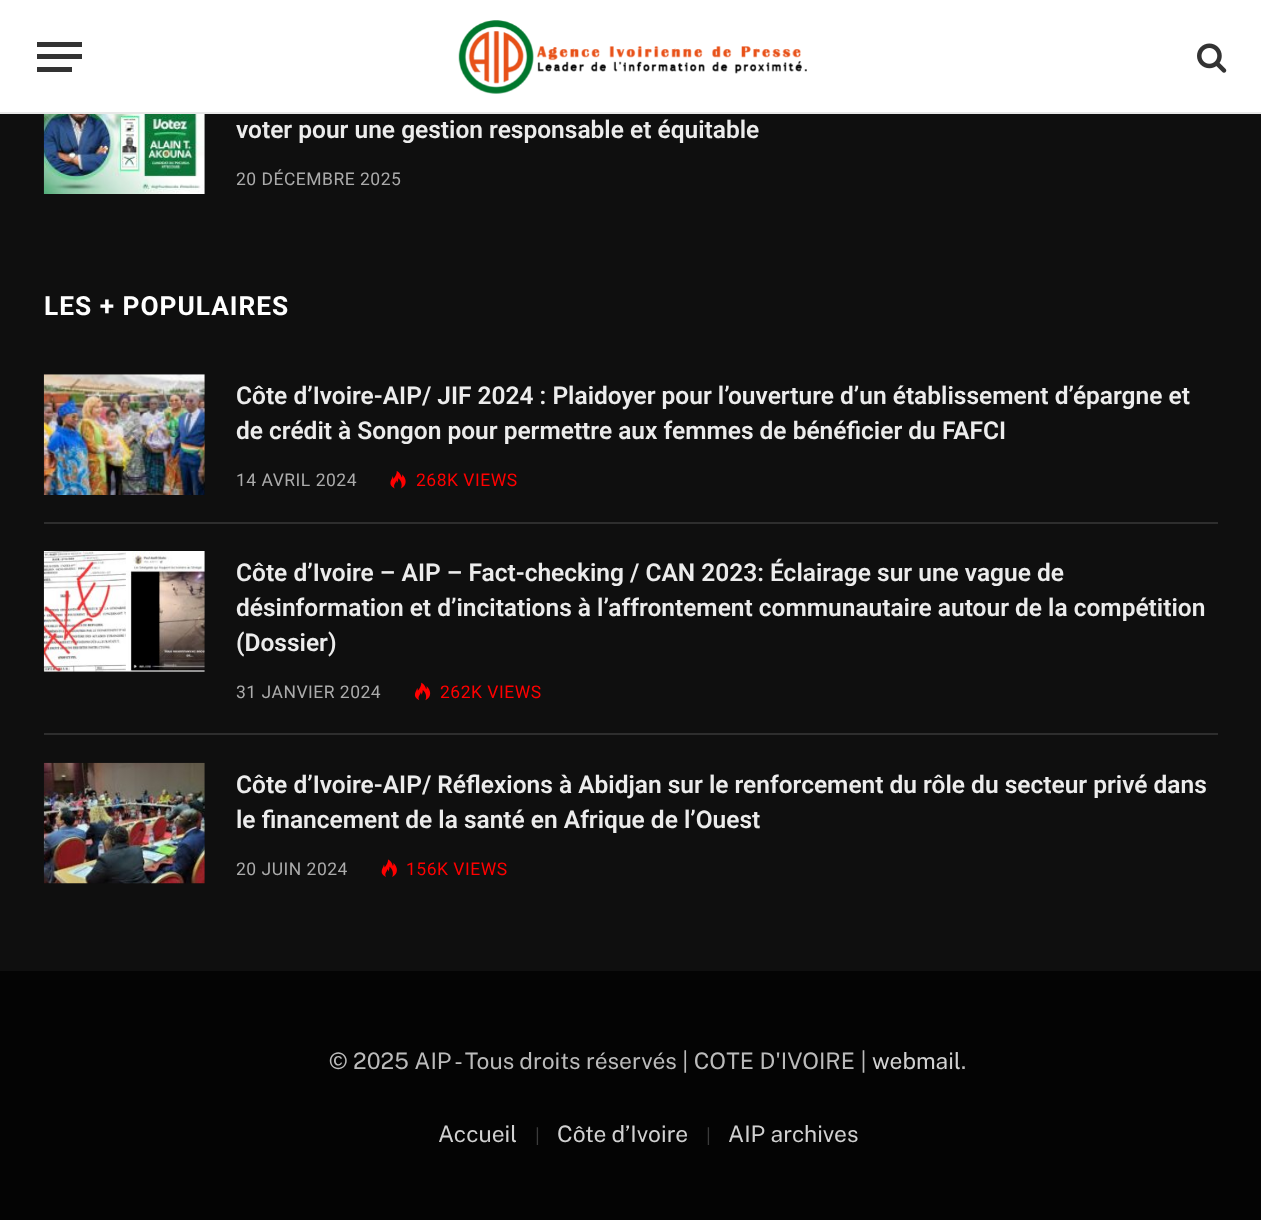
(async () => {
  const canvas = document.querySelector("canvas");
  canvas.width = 1261;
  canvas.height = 1220;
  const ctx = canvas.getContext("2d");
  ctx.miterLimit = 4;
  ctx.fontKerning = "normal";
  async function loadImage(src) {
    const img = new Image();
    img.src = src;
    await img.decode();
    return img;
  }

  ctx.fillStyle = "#0f0f0f";
  ctx.fillRect(0, 0, 1261, 1220);
  for (const [x, y, w, h, color] of [
    [0, 0, 1261, 112, "#ffffff"],
    [0, 112, 1261, 2, "#e8e8e8"],
    [37, 67, 35, 5, "#333333"],
    [37, 42, 45, 5, "#333333"],
    [37, 54, 45, 5, "#333333"],
  ]) {
    ctx.fillStyle = color;
    ctx.fillRect(x, y, w, h);
  }
  ctx.drawImage(await loadImage("img/1.png"), 458, 20, 349, 74);
  ctx.drawImage(await loadImage("img/2.png"), 1197, 43, 30, 30);
  ctx.drawImage(await loadImage("img/3.png"), 43, 114, 162, 80);
  ctx.drawImage(await loadImage("img/4.png"), 43, 374, 162, 121);
  ctx.drawImage(await loadImage("img/5.png"), 390, 471, 16, 18);
  ctx.fillStyle = "#2e2e2e";
  ctx.fillRect(44, 522, 1174, 2);
  ctx.drawImage(await loadImage("img/6.png"), 43, 551, 162, 121);
  ctx.drawImage(await loadImage("img/7.png"), 414, 682, 17, 19);
  ctx.fillRect(44, 733, 1174, 2);
  ctx.drawImage(await loadImage("img/8.png"), 43, 762, 162, 122);
  ctx.drawImage(await loadImage("img/9.png"), 381, 859, 16, 18);
  ctx.fillStyle = "#040404";
  ctx.fillRect(0, 971, 1261, 249);
  ctx.font = "600 24.5px Roboto";
  ctx.fillStyle = "#ececec";
  ctx.fillText("voter pour une gestion responsable et équitable", 236, 138);
  ctx.letterSpacing = "0.5px";
  ctx.font = "17.5px Roboto";
  ctx.fillStyle = "#ababab";
  ctx.fillText("20 DÉCEMBRE 2025", 236, 185);
  ctx.letterSpacing = "1px";
  ctx.font = "bold 26.25px Roboto";
  ctx.fillStyle = "#ffffff";
  ctx.fillText("LES + POPULAIRES", 44, 315);
  ctx.letterSpacing = "0px";
  ctx.font = "600 24.5px Roboto";
  ctx.fillStyle = "#ececec";
  ctx.fillText("Côte d’Ivoire-AIP/ JIF 2024 : Plaidoyer pour l’ouverture d’un établissement d’épargne et", 236, 404);
  ctx.fillText("de crédit à Songon pour permettre aux femmes de bénéficier du FAFCI", 236, 439);
  ctx.letterSpacing = "0.5px";
  ctx.font = "17.5px Roboto";
  ctx.fillStyle = "#ababab";
  ctx.fillText("14 AVRIL 2024", 236, 486);
  ctx.fillStyle = "#ff0000";
  ctx.fillText("268K VIEWS", 416, 486);
  ctx.letterSpacing = "0px";
  ctx.font = "600 24.5px Roboto";
  ctx.fillStyle = "#ececec";
  for (const [text, x, y] of [
    ["Côte d’Ivoire – AIP – Fact-checking / CAN 2023: Éclairage sur une vague de", 236, 581],
    ["désinformation et d’incitations à l’affrontement communautaire autour de la compétition", 236, 616],
    ["(Dossier)", 236, 651],
  ]) {
    ctx.fillText(text, x, y);
  }
  ctx.letterSpacing = "0.5px";
  ctx.font = "17.5px Roboto";
  ctx.fillStyle = "#ababab";
  ctx.fillText("31 JANVIER 2024", 236, 698);
  ctx.fillStyle = "#ff0000";
  ctx.fillText("262K VIEWS", 440, 698);
  ctx.letterSpacing = "0px";
  ctx.font = "600 24.5px Roboto";
  ctx.fillStyle = "#ececec";
  ctx.fillText("Côte d’Ivoire-AIP/ Réflexions à Abidjan sur le renforcement du rôle du secteur privé dans", 236, 793);
  ctx.fillText("le financement de la santé en Afrique de l’Ouest", 236, 828);
  ctx.letterSpacing = "0.5px";
  ctx.font = "17.5px Roboto";
  ctx.fillStyle = "#ababab";
  ctx.fillText("20 JUIN 2024", 236, 875);
  ctx.fillStyle = "#ff0000";
  ctx.fillText("156K VIEWS", 406, 875);
  ctx.letterSpacing = "0px";
  ctx.font = "22.75px Public Sans";
  ctx.fillStyle = "#bbbbbb";
  ctx.fillText("© 2025 AIP - Tous droits réservés | COTE D'IVOIRE |", 329, 1069);
  ctx.fillStyle = "#d1d1d1";
  ctx.fillText("webmail", 872, 1069);
  ctx.fillStyle = "#bbbbbb";
  ctx.fillText(".", 961, 1069);
  ctx.fillStyle = "#d1d1d1";
  ctx.fillText("Accueil", 438, 1142);
  ctx.font = "18px Public Sans";
  ctx.fillStyle = "#3b3b3b";
  ctx.fillText("|", 535, 1142);
  ctx.font = "22.75px Public Sans";
  ctx.fillStyle = "#d1d1d1";
  ctx.fillText("Côte d’Ivoire", 557, 1142);
  ctx.font = "18px Public Sans";
  ctx.fillStyle = "#3b3b3b";
  ctx.fillText("|", 706, 1142);
  ctx.font = "22.75px Public Sans";
  ctx.fillStyle = "#d1d1d1";
  ctx.fillText("AIP archives", 728, 1142);
})();
